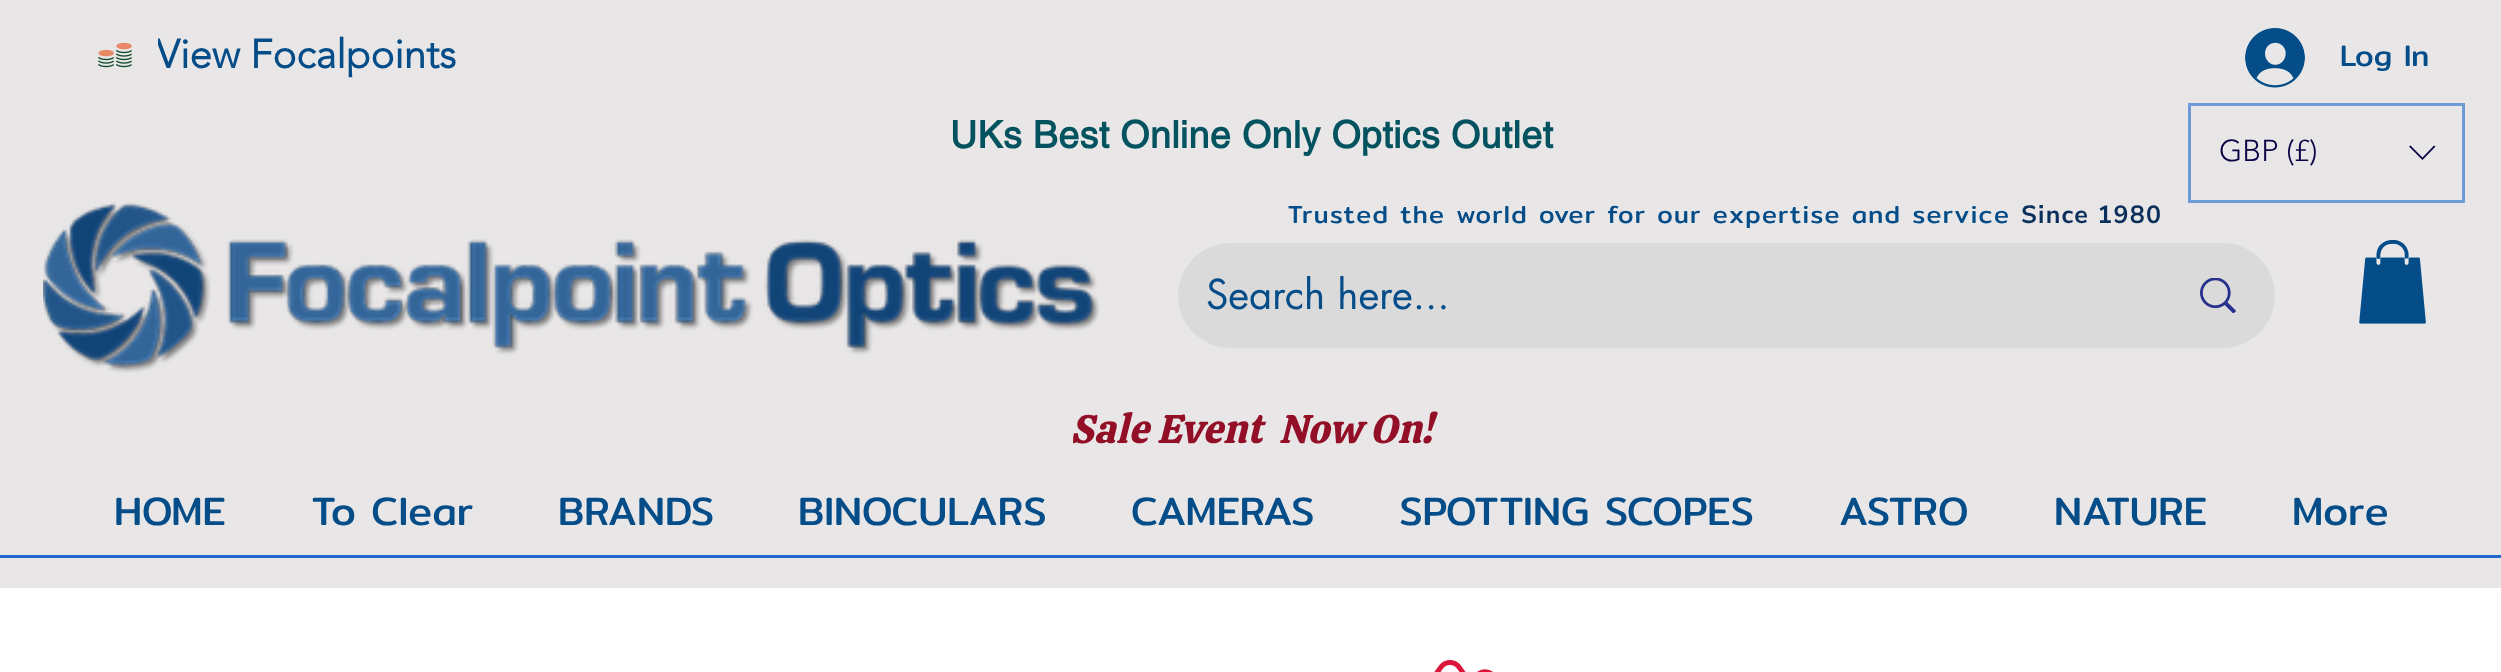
(async () => {
  const canvas = document.querySelector("canvas");
  canvas.width = 2501;
  canvas.height = 672;
  const ctx = canvas.getContext("2d");
  ctx.miterLimit = 4;
  ctx.fontKerning = "normal";
  async function loadImage(src) {
    const img = new Image();
    img.src = src;
    await img.decode();
    return img;
  }
  let path;

  ctx.fillStyle = "#ffffff";
  ctx.fillRect(0, 0, 2501, 672);
  ctx.fillStyle = "#e8e6e6";
  ctx.fillRect(0, 0, 2501, 588);
  ctx.drawImage(await loadImage("img/1.png"), 98, 42, 34, 26);
  ctx.drawImage(await loadImage("img/2.png"), 2245, 28, 60, 60);
  ctx.drawImage(await loadImage("img/3.png"), 43, 202, 1057, 171);
  ctx.fillStyle = "#dbdada";
  ctx.beginPath();
  ctx.roundRect(1178, 243, 1097, 105, 52.5);
  ctx.fill();
  ctx.drawImage(await loadImage("img/4.png"), 2200, 278, 36, 35);
  ctx.fillStyle = "#1d67cd";
  ctx.fillRect(0, 555, 2501, 3);
  ctx.strokeStyle = "#6e9ad7";
  ctx.lineWidth = 3;
  ctx.strokeRect(2189.5, 104.5, 274, 97);
  ctx.fillStyle = "#0c0145";
  path = new Path2D("M2434 145.5L2435.5 146.5L2422.5 160L2409 146.5L2410.5 145.5L2422.5 157.5Z");
  ctx.fill(path, "evenodd");
  ctx.drawImage(await loadImage("img/5.png"), 2359, 240, 67, 84);
  ctx.drawImage(await loadImage("img/6.png"), 1434, 660, 59, 12);
  ctx.save();
  ctx.beginPath();
  ctx.rect(158, 30, 300, 50);
  ctx.clip();
  ctx.font = "bold 40px 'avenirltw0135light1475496'";
  ctx.fillStyle = "#044d89";
  ctx.fillText("View Focalpoints", 156, 68);
  ctx.restore();
  ctx.font = "30px Mitr";
  ctx.fillStyle = "#044d89";
  ctx.fillText("Log In", 2340, 66);
  ctx.letterSpacing = "0.4px";
  ctx.font = "bold 37.5px helvetica";
  ctx.fillStyle = "#02525f";
  ctx.fillText("UKs Best Online Only Optics Outlet", 950, 148);
  ctx.letterSpacing = "1.25px";
  ctx.font = "25px Mitr";
  ctx.fillStyle = "#044d89";
  ctx.fillText("Trusted the world over for our expertise and service", 1288, 223);
  ctx.font = "bold 25px Nunito Sans";
  ctx.fillStyle = "#0b2f5b";
  ctx.fillText("Since 1980", 2021, 223);
  ctx.letterSpacing = "0px";
  ctx.font = "40px futura";
  ctx.fillStyle = "#044d89";
  ctx.fillText("Search here...", 1206, 309);
  ctx.letterSpacing = "0.4px";
  ctx.font = "italic 40px Calistoga";
  ctx.fillStyle = "#920f27";
  ctx.fillText("Sale Event  Now On!", 1070, 443);
  ctx.letterSpacing = "0px";
  ctx.font = "40px Mitr";
  ctx.fillStyle = "#044d89";
  for (const [text, x, y] of [
    ["HOME", 114, 525],
    ["To Clear", 312, 525],
    ["BRANDS", 558, 525],
    ["BINOCULARS", 798, 525],
    ["CAMERAS", 1131, 525],
    ["SPOTTING SCOPES", 1399, 525],
    ["ASTRO", 1839, 525],
    ["NATURE", 2054, 525],
    ["More", 2292, 525],
  ]) {
    ctx.fillText(text, x, y);
  }
  ctx.font = "300 30px 'avenirltw0135light1475496'";
  ctx.fillStyle = "#0c0145";
  ctx.fillText("GBP (£)", 2219, 161);
})();
